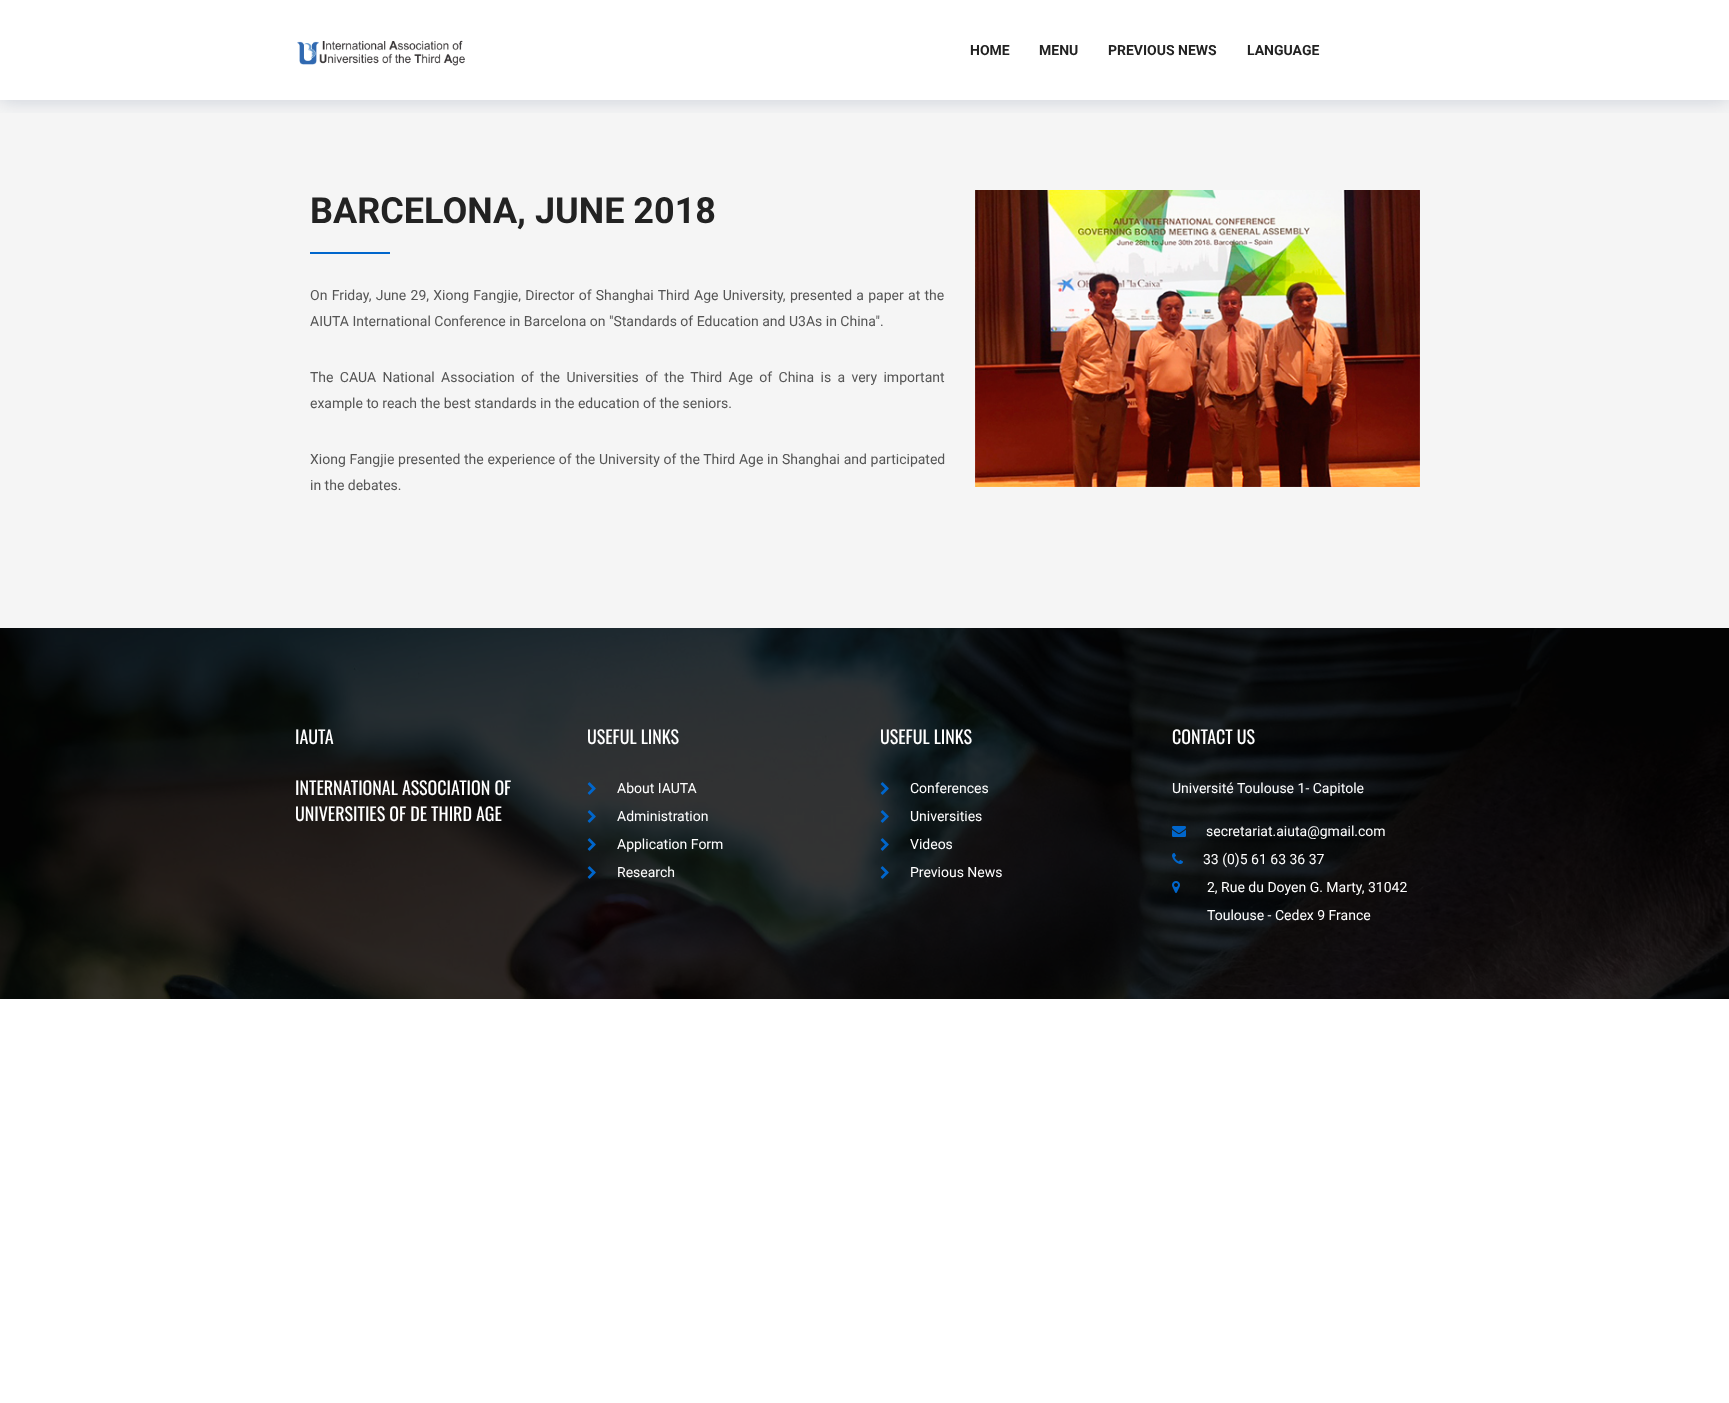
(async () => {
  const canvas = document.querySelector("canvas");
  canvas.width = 1729;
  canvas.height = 1403;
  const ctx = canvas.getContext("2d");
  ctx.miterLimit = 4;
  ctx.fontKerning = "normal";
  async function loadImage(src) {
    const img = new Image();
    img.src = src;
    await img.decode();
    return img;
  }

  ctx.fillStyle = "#ffffff";
  ctx.fillRect(0, 0, 1729, 1403);
  ctx.fillStyle = "#f5f5f5";
  ctx.fillRect(0, 100, 1729, 528);
  ctx.save();
  ctx.beginPath();
  ctx.rect(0, 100, 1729, 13);
  ctx.clip();
  ctx.fillStyle = "rgba(21, 47, 95, 0.2)";
  ctx.filter = "blur(10px)";
  ctx.beginPath();
  ctx.rect(0, 0, 1729, 100);
  ctx.fill();
  ctx.filter = "none";
  ctx.restore();
  ctx.drawImage(await loadImage("img/1.png"), 297, 40, 168, 26);
  ctx.fillStyle = "#0066cc";
  ctx.fillRect(310, 252, 80, 2);
  ctx.drawImage(await loadImage("img/2.png"), 975, 190, 445, 297);
  ctx.drawImage(await loadImage("img/3.png"), 0, 628, 1729, 371);
  ctx.drawImage(await loadImage("img/4.png"), 587, 782, 9, 13);
  ctx.drawImage(await loadImage("img/5.png"), 587, 810, 9, 13);
  ctx.drawImage(await loadImage("img/6.png"), 587, 838, 9, 13);
  ctx.drawImage(await loadImage("img/7.png"), 587, 866, 9, 13);
  ctx.drawImage(await loadImage("img/8.png"), 880, 782, 9, 13);
  ctx.drawImage(await loadImage("img/9.png"), 880, 810, 9, 13);
  ctx.drawImage(await loadImage("img/10.png"), 880, 838, 9, 13);
  ctx.drawImage(await loadImage("img/11.png"), 880, 866, 9, 13);
  ctx.drawImage(await loadImage("img/12.png"), 1172, 826, 14, 11);
  ctx.drawImage(await loadImage("img/13.png"), 1172, 853, 11, 11);
  ctx.drawImage(await loadImage("img/14.png"), 1172, 881, 8, 12);
  ctx.font = "bold 14px Roboto";
  ctx.fillStyle = "#222222";
  for (const [text, x, y] of [
    ["HOME", 970, 55],
    ["MENU", 1039, 55],
    ["PREVIOUS NEWS", 1108, 55],
    ["LANGUAGE", 1247, 55],
  ]) {
    ctx.fillText(text, x, y);
  }
  ctx.font = "bold 36px Roboto";
  ctx.fillText("BARCELONA, JUNE 2018", 310, 223);
  ctx.wordSpacing = "0.8px";
  ctx.font = "14px Roboto";
  ctx.fillStyle = "#555555";
  ctx.fillText("On Friday, June 29, Xiong Fangjie, Director of Shanghai Third Age University, presented a paper at the", 310, 300);
  ctx.wordSpacing = "0px";
  ctx.fillText("AIUTA International Conference in Barcelona on \"Standards of Education and U3As in China\".", 310, 326);
  ctx.wordSpacing = "2.9px";
  ctx.fillText("The CAUA National Association of the Universities of the Third Age of China is a very important", 310, 382);
  ctx.wordSpacing = "0px";
  ctx.fillText("example to reach the best standards in the education of the seniors.", 310, 408);
  ctx.wordSpacing = "0.25px";
  ctx.fillText("Xiong Fangjie presented the experience of the University of the Third Age in Shanghai and participated", 310, 464);
  ctx.wordSpacing = "0px";
  ctx.fillText("in the debates.", 310, 490);
  ctx.font = "18px Oswald";
  ctx.fillStyle = "#ffffff";
  for (const [text, x, y] of [
    ["IAUTA", 295, 744],
    ["INTERNATIONAL ASSOCIATION OF", 295, 795],
    ["UNIVERSITIES OF DE THIRD AGE", 295, 821],
    ["USEFUL LINKS", 587, 744],
  ]) {
    ctx.fillText(text, x, y);
  }
  ctx.font = "14px Roboto";
  for (const [text, x, y] of [
    ["About IAUTA", 617, 793],
    ["Administration", 617, 821],
    ["Application Form", 617, 849],
    ["Research", 617, 877],
  ]) {
    ctx.fillText(text, x, y);
  }
  ctx.font = "18px Oswald";
  ctx.fillText("USEFUL LINKS", 880, 744);
  ctx.font = "14px Roboto";
  for (const [text, x, y] of [
    ["Conferences", 910, 793],
    ["Universities", 910, 821],
    ["Videos", 910, 849],
    ["Previous News", 910, 877],
  ]) {
    ctx.fillText(text, x, y);
  }
  ctx.font = "18px Oswald";
  ctx.fillText("CONTACT US", 1172, 744);
  ctx.font = "14px Roboto";
  for (const [text, x, y] of [
    ["Université Toulouse 1- Capitole", 1172, 793],
    ["secretariat.aiuta@gmail.com", 1206, 836],
    ["33 (0)5 61 63 36 37", 1203, 864],
    ["2, Rue du Doyen G. Marty, 31042", 1207, 892],
    ["Toulouse - Cedex 9 France", 1207, 920],
  ]) {
    ctx.fillText(text, x, y);
  }
})();
